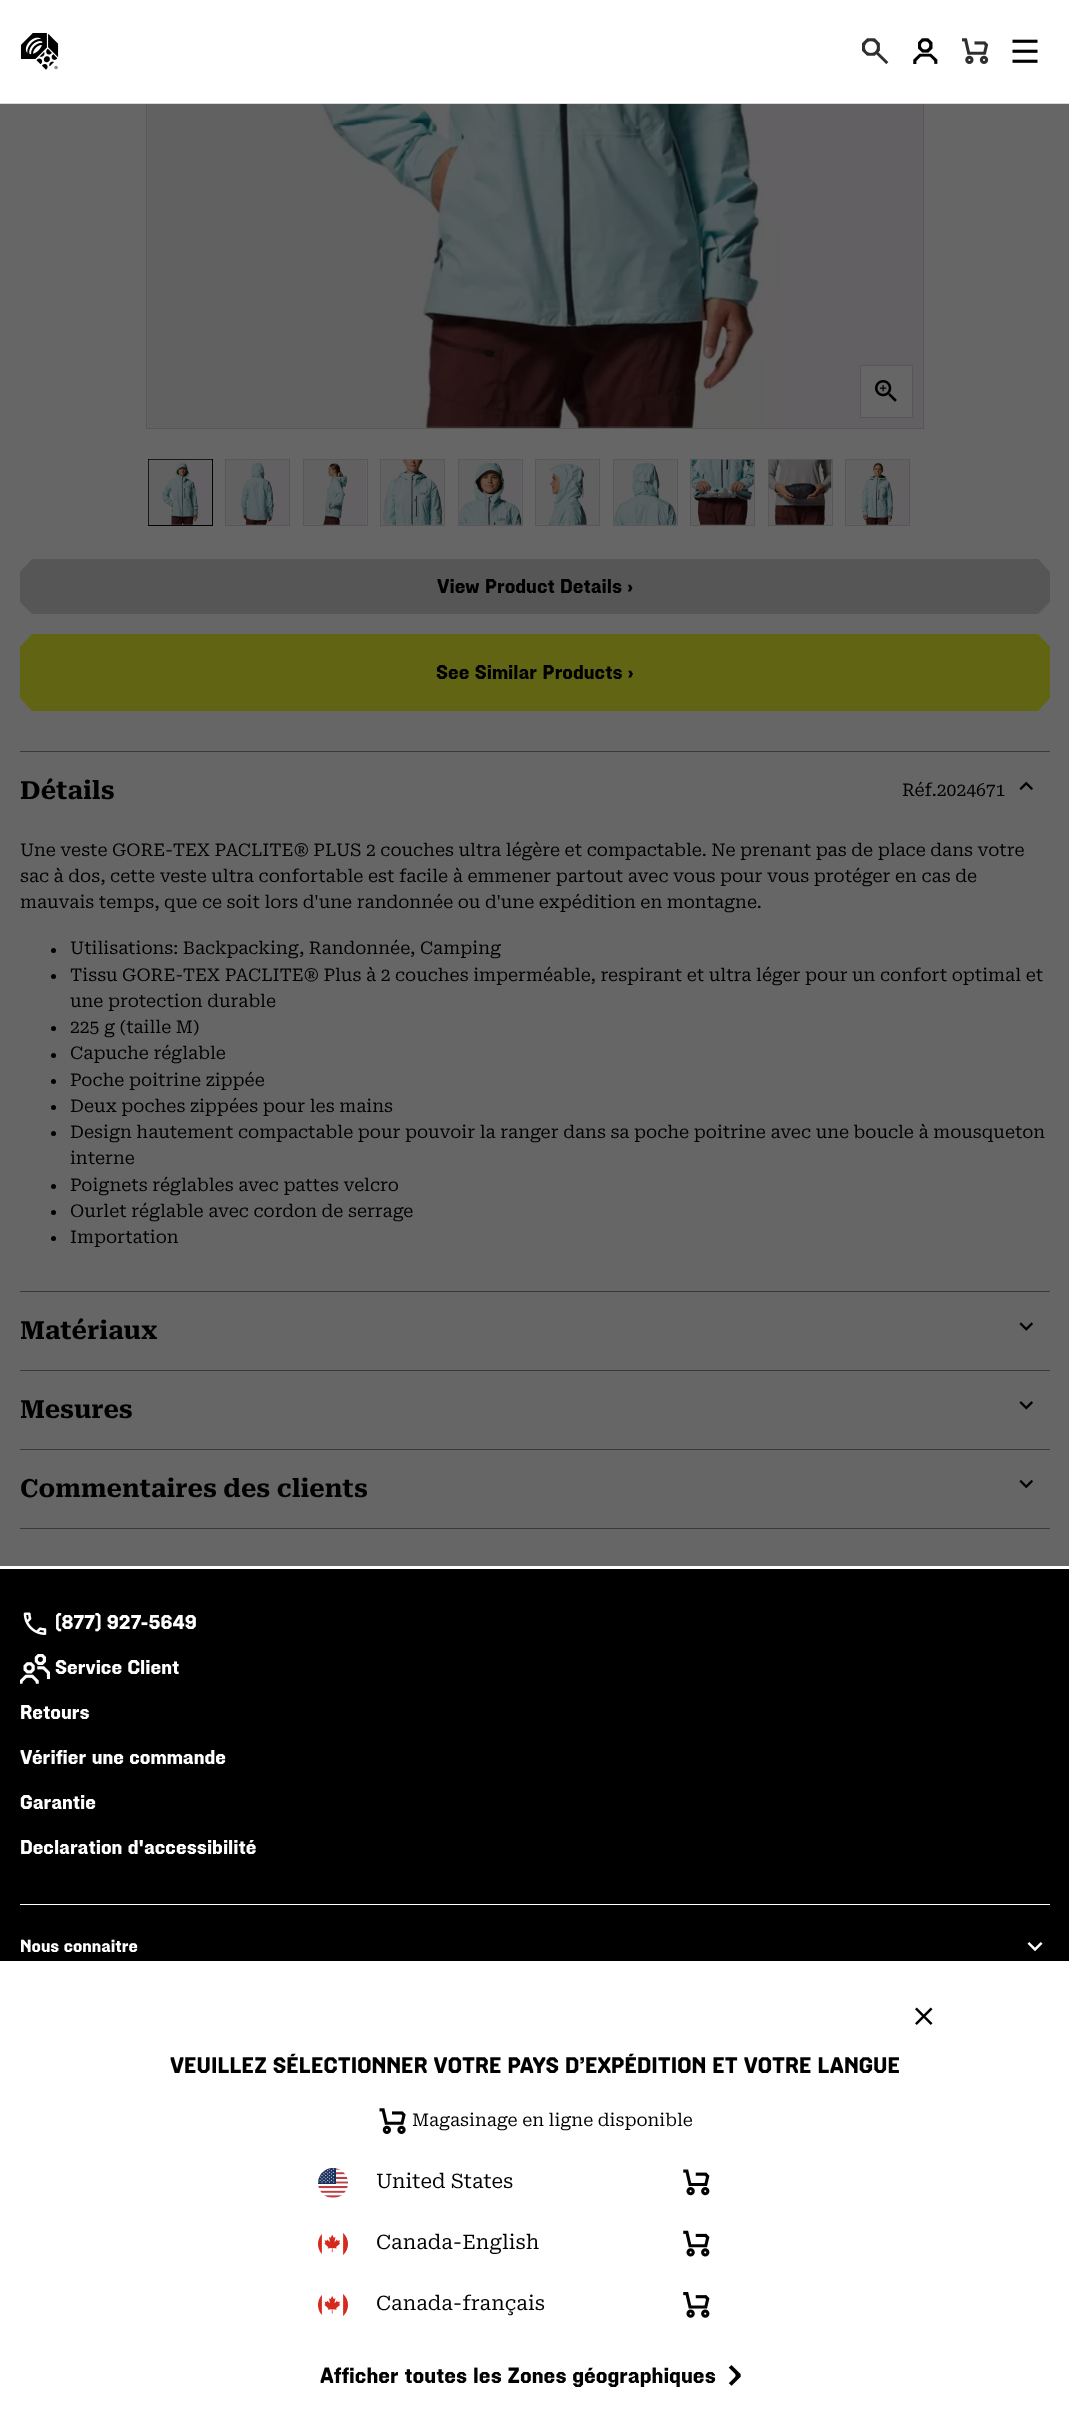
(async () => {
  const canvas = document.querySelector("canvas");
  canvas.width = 1069;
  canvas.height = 2430;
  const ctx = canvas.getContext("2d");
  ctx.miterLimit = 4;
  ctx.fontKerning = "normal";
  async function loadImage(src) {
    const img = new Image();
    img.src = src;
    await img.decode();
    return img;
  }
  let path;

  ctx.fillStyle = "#ffffff";
  ctx.fillRect(0, 0, 1069, 2430);
  ctx.fillStyle = "#666666";
  ctx.fillRect(0, 104, 1069, 1462);
  ctx.strokeStyle = "#575656";
  ctx.strokeRect(146.5, -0.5, 777, 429);
  ctx.fillStyle = "#dad8d8";
  ctx.fillRect(0, 103, 1069, 1);
  ctx.fillStyle = "#ffffff";
  ctx.fillRect(146, 0, 778, 103);
  ctx.drawImage(await loadImage("img/1.png"), 20, 33, 39, 37);
  ctx.drawImage(await loadImage("img/2.png"), 862, 38, 27, 26);
  ctx.drawImage(await loadImage("img/3.png"), 913, 38, 25, 26);
  ctx.drawImage(await loadImage("img/4.png"), 962, 38, 27, 26);
  ctx.drawImage(await loadImage("img/5.png"), 1012, 39, 26, 24);
  ctx.drawImage(await loadImage("img/6.png"), 148, 104, 775, 324);
  ctx.fillStyle = "#666666";
  ctx.beginPath();
  ctx.rect(860.5, 365.5, 52, 52);
  ctx.fill();
  ctx.stroke();
  ctx.drawImage(await loadImage("img/7.png"), 875, 380, 22, 22);
  ctx.strokeStyle = "#000000";
  ctx.strokeRect(148.5, 459.5, 64, 66);
  ctx.drawImage(await loadImage("img/8.png"), 148, 459, 64, 66);
  ctx.strokeStyle = "#575656";
  ctx.strokeRect(225.5, 459.5, 64, 66);
  ctx.drawImage(await loadImage("img/9.png"), 226, 459, 63, 66);
  ctx.strokeRect(303.5, 459.5, 64, 66);
  ctx.drawImage(await loadImage("img/10.png"), 303, 459, 63, 66);
  ctx.strokeRect(380.5, 459.5, 64, 66);
  ctx.drawImage(await loadImage("img/11.png"), 381, 459, 63, 66);
  ctx.strokeRect(458.5, 459.5, 64, 66);
  ctx.drawImage(await loadImage("img/12.png"), 458, 459, 64, 66);
  ctx.strokeRect(535.5, 459.5, 64, 66);
  ctx.drawImage(await loadImage("img/13.png"), 536, 459, 63, 66);
  ctx.strokeRect(613.5, 459.5, 64, 66);
  ctx.drawImage(await loadImage("img/14.png"), 613, 459, 64, 66);
  ctx.strokeRect(690.5, 459.5, 64, 66);
  ctx.drawImage(await loadImage("img/15.png"), 691, 459, 63, 66);
  ctx.strokeRect(768.5, 459.5, 64, 66);
  ctx.drawImage(await loadImage("img/16.png"), 768, 459, 64, 66);
  ctx.strokeRect(845.5, 459.5, 64, 66);
  ctx.drawImage(await loadImage("img/17.png"), 846, 459, 63, 66);
  ctx.fillStyle = "#575656";
  path = new Path2D("M20 572V602L32 614H1038L1050 602V572L1038 559H32Z");
  ctx.fill(path);
  ctx.fillStyle = "#616513";
  path = new Path2D("M20 647V698L32 711H1038L1050 698V647L1038 634H32Z");
  ctx.fill(path);
  ctx.fillStyle = "#3a393b";
  ctx.fillRect(20, 751, 1030, 1);
  ctx.drawImage(await loadImage("img/18.png"), 1019, 781, 14, 10);
  ctx.fillStyle = "#000000";
  ctx.beginPath();
  ctx.arc(53.5, 950.5, 2.5, 0, Math.PI * 2);
  ctx.fill();
  ctx.beginPath();
  ctx.arc(53.5, 976.5, 2.5, 0, Math.PI * 2);
  ctx.fill();
  ctx.beginPath();
  ctx.arc(53.5, 1028.5, 2.5, 0, Math.PI * 2);
  ctx.fill();
  ctx.beginPath();
  ctx.arc(53.5, 1055.5, 2.5, 0, Math.PI * 2);
  ctx.fill();
  ctx.beginPath();
  ctx.arc(53.5, 1081.5, 2.5, 0, Math.PI * 2);
  ctx.fill();
  ctx.beginPath();
  ctx.arc(53.5, 1107.5, 2.5, 0, Math.PI * 2);
  ctx.fill();
  ctx.beginPath();
  ctx.arc(53.5, 1133.5, 2.5, 0, Math.PI * 2);
  ctx.fill();
  ctx.beginPath();
  ctx.arc(53.5, 1186.5, 2.5, 0, Math.PI * 2);
  ctx.fill();
  ctx.beginPath();
  ctx.arc(53.5, 1212.5, 2.5, 0, Math.PI * 2);
  ctx.fill();
  ctx.beginPath();
  ctx.arc(53.5, 1238.5, 2.5, 0, Math.PI * 2);
  ctx.fill();
  ctx.fillStyle = "#3a393b";
  ctx.fillRect(20, 1291, 1030, 1);
  ctx.drawImage(await loadImage("img/19.png"), 1019, 1322, 14, 9);
  ctx.fillRect(20, 1370, 1030, 1);
  ctx.drawImage(await loadImage("img/20.png"), 1019, 1401, 14, 9);
  ctx.fillRect(20, 1528, 1030, 1);
  ctx.fillRect(20, 1449, 1030, 1);
  ctx.drawImage(await loadImage("img/21.png"), 1019, 1479, 14, 10);
  ctx.fillStyle = "#000000";
  ctx.fillRect(0, 1569, 1069, 392);
  ctx.fillStyle = "#ffffff";
  ctx.fillRect(20, 1904, 1030, 1);
  ctx.drawImage(await loadImage("img/22.png"), 23, 1612, 24, 23);
  ctx.drawImage(await loadImage("img/23.png"), 20, 1654, 30, 30);
  ctx.drawImage(await loadImage("img/24.png"), 1027, 1942, 16, 10);
  ctx.drawImage(await loadImage("img/25.png"), 915, 2007, 18, 18);
  ctx.drawImage(await loadImage("img/26.png"), 379, 2108, 27, 26);
  ctx.drawImage(await loadImage("img/27.png"), 318, 2168, 30, 30);
  ctx.drawImage(await loadImage("img/28.png"), 683, 2169, 27, 27);
  ctx.drawImage(await loadImage("img/29.png"), 318, 2233, 30, 22);
  ctx.drawImage(await loadImage("img/30.png"), 683, 2230, 27, 27);
  ctx.drawImage(await loadImage("img/31.png"), 318, 2294, 30, 22);
  ctx.drawImage(await loadImage("img/32.png"), 683, 2292, 27, 26);
  ctx.drawImage(await loadImage("img/33.png"), 728, 2365, 13, 21);
  ctx.font = "bold 20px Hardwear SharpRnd";
  ctx.fillStyle = "#000000";
  ctx.fillText("View Product Details ›", 437, 593);
  ctx.fillText("See Similar Products ›", 436, 679);
  ctx.font = "bold 25px Roboto Serif";
  ctx.fillText("Détails", 20, 799);
  ctx.font = "17.5px Roboto Serif";
  for (const [text, x, y] of [
    ["Réf.2024671", 902, 796],
    ["Une veste GORE-TEX PACLITE® PLUS 2 couches ultra légère et compactable. Ne prenant pas de place dans votre", 20, 856],
    ["sac à dos, cette veste ultra confortable est facile à emmener partout avec vous pour vous protéger en cas de", 20, 882],
    ["mauvais temps, que ce soit lors d'une randonnée ou d'une expédition en montagne.", 20, 908],
    ["Utilisations: Backpacking, Randonnée, Camping", 70, 954],
    ["Tissu GORE-TEX PACLITE® Plus à 2 couches imperméable, respirant et ultra léger pour un confort optimal et", 70, 981],
    ["une protection durable", 70, 1007],
    ["225 g (taille M)", 70, 1033],
    ["Capuche réglable", 70, 1059],
    ["Poche poitrine zippée", 70, 1086],
    ["Deux poches zippées pour les mains", 70, 1112],
    ["Design hautement compactable pour pouvoir la ranger dans sa poche poitrine avec une boucle à mousqueton", 70, 1138],
    ["interne", 70, 1164],
    ["Poignets réglables avec pattes velcro", 70, 1191],
    ["Ourlet réglable avec cordon de serrage", 70, 1217],
    ["Importation", 70, 1243],
  ]) {
    ctx.fillText(text, x, y);
  }
  ctx.font = "bold 25px Roboto Serif";
  for (const [text, x, y] of [
    ["Matériaux", 20, 1339],
    ["Mesures", 20, 1418],
    ["Commentaires des clients", 20, 1497],
  ]) {
    ctx.fillText(text, x, y);
  }
  ctx.font = "bold 20px Hardwear SharpRnd";
  ctx.fillStyle = "#ffffff";
  for (const [text, x, y] of [
    ["(877) 927-5649", 55, 1629],
    ["Service Client", 55, 1674],
    ["Retours", 20, 1719],
    ["Vérifier une commande", 20, 1764],
    ["Garantie", 20, 1809],
    ["Declaration d'accessibilité", 20, 1854],
  ]) {
    ctx.fillText(text, x, y);
  }
  ctx.font = "bold 17.5px Hardwear SharpRnd";
  ctx.fillText("Nous connaitre", 20, 1952);
  ctx.font = "bold 22.5px Hardwear SharpRnd";
  ctx.fillStyle = "#000000";
  ctx.fillText("VEUILLEZ SÉLECTIONNER VOTRE PAYS D’EXPÉDITION ET VOTRE LANGUE", 170, 2073);
  ctx.font = "17.5px Roboto Serif";
  ctx.fillText("Magasinage en ligne disponible", 412, 2126);
  ctx.font = "20px Roboto Serif";
  for (const [text, x, y] of [
    ["United States", 376, 2188],
    ["Canada-English", 376, 2249],
    ["Canada-français", 376, 2310],
  ]) {
    ctx.fillText(text, x, y);
  }
  ctx.font = "bold 22px Hardwear SharpRnd";
  ctx.fillText("Afficher toutes les Zones géographiques", 320, 2383);
})();
